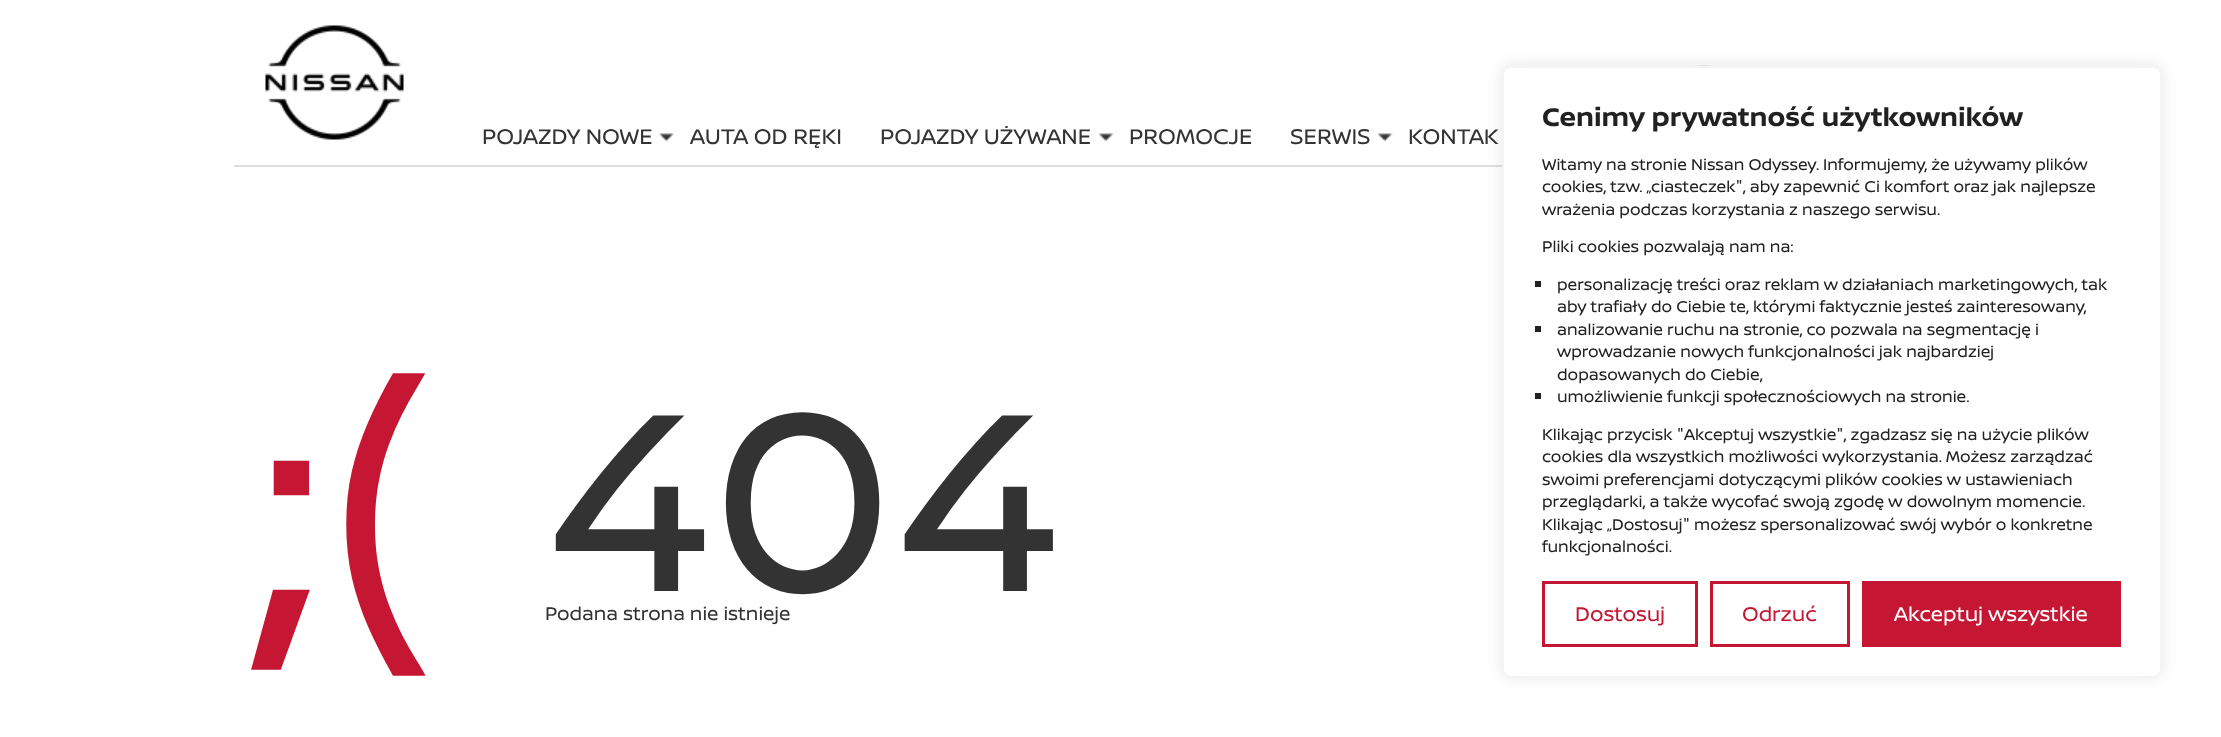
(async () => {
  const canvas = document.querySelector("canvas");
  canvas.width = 2221;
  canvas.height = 737;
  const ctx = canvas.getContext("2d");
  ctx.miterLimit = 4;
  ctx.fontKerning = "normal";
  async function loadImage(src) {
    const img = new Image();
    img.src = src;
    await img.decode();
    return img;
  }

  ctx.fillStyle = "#ffffff";
  ctx.fillRect(0, 0, 2221, 737);
  ctx.drawImage(await loadImage("img/1.png"), 1676, 65, 300, 1);
  ctx.drawImage(await loadImage("img/2.png"), 265, 25, 139, 115);
  ctx.drawImage(await loadImage("img/3.png"), 658, 133, 16, 9);
  ctx.drawImage(await loadImage("img/4.png"), 1098, 133, 16, 9);
  ctx.drawImage(await loadImage("img/5.png"), 1377, 133, 16, 9);
  ctx.fillStyle = "#dddddd";
  ctx.fillRect(234, 165, 1268, 2);
  ctx.fillStyle = "rgba(172, 171, 171, 0.3)";
  ctx.filter = "blur(7.5px)";
  ctx.beginPath();
  ctx.roundRect(1502, 65, 660, 612, 9);
  ctx.fill();
  ctx.filter = "none";
  ctx.fillStyle = "#ffffff";
  ctx.beginPath();
  ctx.roundRect(1503, 67, 658, 610, 8);
  ctx.fill();
  ctx.strokeStyle = "#f4f4f4";
  ctx.lineWidth = 2;
  ctx.stroke();
  for (const [x, y, w, h, color] of [
    [1535, 281, 6, 6, "#212121"],
    [1535, 326, 6, 6, "#212121"],
    [1535, 393, 6, 6, "#212121"],
  ]) {
    ctx.fillStyle = color;
    ctx.fillRect(x, y, w, h);
  }
  ctx.strokeStyle = "#c51733";
  ctx.lineWidth = 3;
  ctx.strokeRect(1543.5, 582.5, 153, 63);
  ctx.strokeRect(1711.5, 582.5, 137, 63);
  ctx.fillStyle = "#c51733";
  ctx.fillRect(1862, 581, 259, 66);
  ctx.font = "22.5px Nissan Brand";
  ctx.fillStyle = "#333333";
  for (const [text, x, y] of [
    ["POJAZDY NOWE", 482, 144],
    ["AUTA OD RĘKI", 690, 144],
    ["POJAZDY UŻYWANE", 880, 144],
    ["PROMOCJE", 1129, 144],
    ["SERWIS", 1290, 144],
    ["KONTAK", 1408, 144],
  ]) {
    ctx.fillText(text, x, y);
  }
  ctx.font = "bold 27px Nissan Brand";
  ctx.fillStyle = "#212121";
  ctx.fillText("Cenimy prywatność użytkowników", 1542, 126);
  ctx.font = "16.5px Nissan Brand";
  for (const [text, x, y] of [
    ["Witamy na stronie Nissan Odyssey. Informujemy, że używamy plików", 1542, 170],
    ["cookies, tzw. „ciasteczek\", aby zapewnić Ci komfort oraz jak najlepsze", 1542, 192],
    ["wrażenia podczas korzystania z naszego serwisu.", 1542, 215],
    ["Pliki cookies pozwalają nam na:", 1542, 252],
    ["personalizację treści oraz reklam w działaniach marketingowych, tak", 1557, 290],
    ["aby trafiały do Ciebie te, którymi faktycznie jesteś zainteresowany,", 1557, 312],
    ["analizowanie ruchu na stronie, co pozwala na segmentację i", 1557, 335],
    ["wprowadzanie nowych funkcjonalności jak najbardziej", 1557, 357],
    ["dopasowanych do Ciebie,", 1557, 380],
    ["umożliwienie funkcji społecznościowych na stronie.", 1557, 402],
    ["Klikając przycisk \"Akceptuj wszystkie\", zgadzasz się na użycie plików", 1542, 440],
    ["cookies dla wszystkich możliwości wykorzystania. Możesz zarządzać", 1542, 462],
    ["swoimi preferencjami dotyczącymi plików cookies w ustawieniach", 1542, 485],
    ["przeglądarki, a także wycofać swoją zgodę w dowolnym momencie.", 1542, 507],
    ["Klikając „Dostosuj\" możesz spersonalizować swój wybór o konkretne", 1542, 530],
    ["funkcjonalności.", 1542, 552],
  ]) {
    ctx.fillText(text, x, y);
  }
  ctx.font = "21px Nissan Brand";
  ctx.fillStyle = "#c51733";
  ctx.fillText("Dostosuj", 1575, 621);
  ctx.fillText("Odrzuć", 1742, 621);
  ctx.fillStyle = "#ffffff";
  ctx.fillText("Akceptuj wszystkie", 1894, 621);
  ctx.font = "354px Nissan Brand";
  ctx.fillStyle = "#c51733";
  ctx.fillText(";(", 256, 624);
  ctx.font = "270px Nissan Brand";
  ctx.fillStyle = "#333333";
  ctx.fillText("404", 545, 591);
  ctx.font = "19.5px Nissan Brand";
  ctx.fillText("Podana strona nie istnieje", 545, 620);
})();
